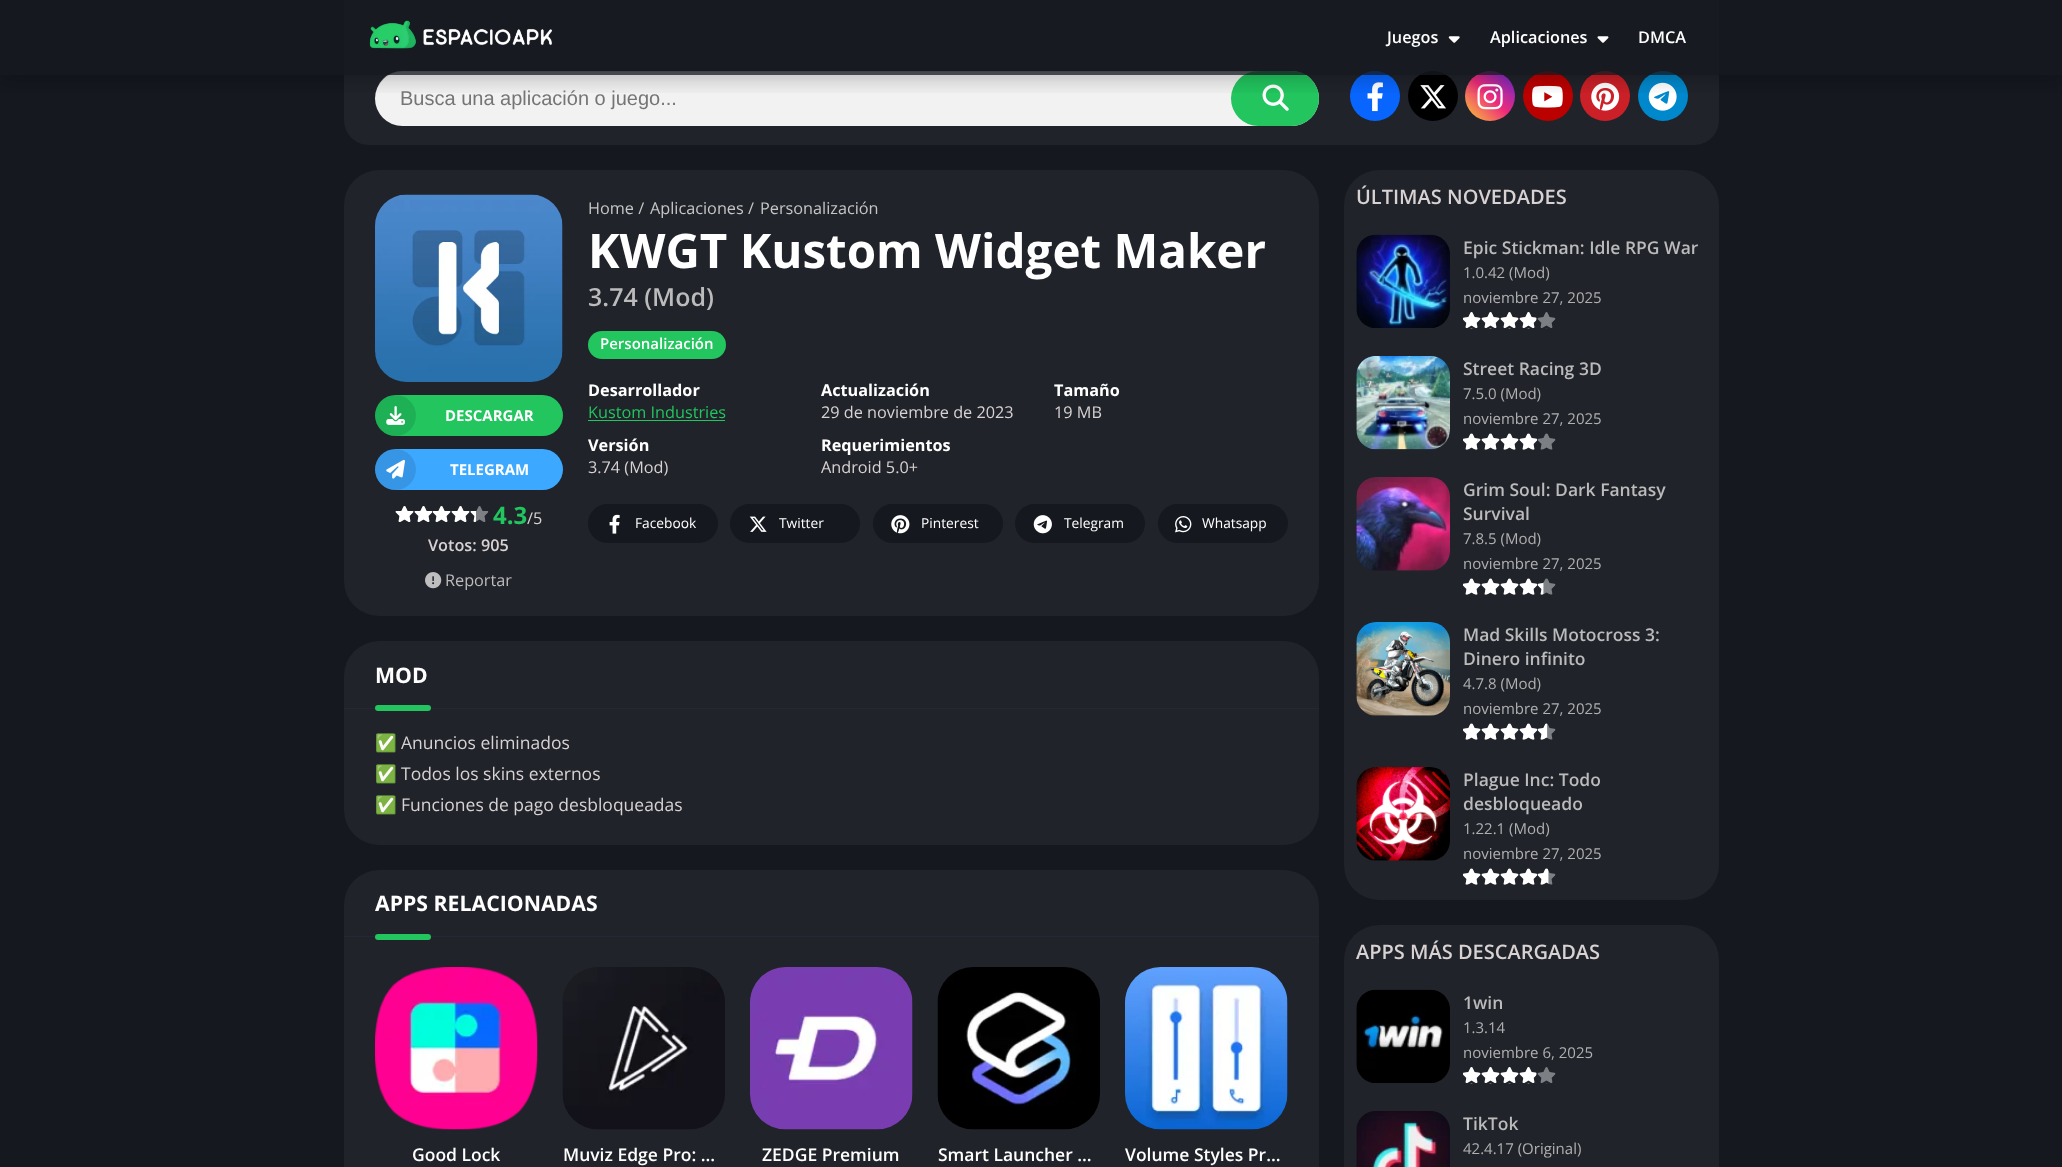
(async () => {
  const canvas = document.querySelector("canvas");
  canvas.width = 2062;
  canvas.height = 1167;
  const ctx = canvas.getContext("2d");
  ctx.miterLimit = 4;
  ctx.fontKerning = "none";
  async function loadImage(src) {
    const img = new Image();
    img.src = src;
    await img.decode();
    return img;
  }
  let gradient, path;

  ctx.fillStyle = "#15181f";
  ctx.fillRect(0, 0, 2062, 1167);
  ctx.fillStyle = "#20232a";
  path = new Path2D("M344-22H1719V120C1719 134 1708 145 1694 145H369C355 145 344 134 344 120Z");
  ctx.fill(path);
  ctx.fillStyle = "#f2f2f2";
  ctx.beginPath();
  ctx.roundRect(375, 71, 944, 55, 27.5);
  ctx.fill();
  ctx.fillStyle = "rgba(0, 0, 0, 0.12)";
  path = new Path2D("M402 72H1291C1306 72 1319 85 1319 99C1319 84 1307 71 1292 71H402C399 71 395 72 392 73C381 78 375 88 375 99C375 85 387 72 402 72Z");
  ctx.fill(path);
  ctx.fillStyle = "#22c55e";
  ctx.beginPath();
  ctx.roundRect(1231, 71, 88, 55, 27.5);
  ctx.fill();
  ctx.drawImage(await loadImage("img/4.png"), 1262, 84, 27, 27);
  ctx.fillStyle = "#0866ff";
  ctx.beginPath();
  ctx.arc(1375, 96, 25, 0, Math.PI * 2);
  ctx.fill();
  ctx.drawImage(await loadImage("img/5.png"), 1367, 82, 16, 30);
  ctx.fillStyle = "#000000";
  ctx.beginPath();
  ctx.arc(1433, 96, 25, 0, Math.PI * 2);
  ctx.fill();
  ctx.drawImage(await loadImage("img/6.png"), 1420, 85, 26, 24);
  gradient = ctx.createLinearGradient(1465, 121, 1515, 71);
  gradient.addColorStop(0, "#f9ce34");
  gradient.addColorStop(0.5, "#ee2a7b");
  gradient.addColorStop(1, "#6228d7");
  ctx.fillStyle = gradient;
  ctx.beginPath();
  ctx.arc(1490, 96, 25, 0, Math.PI * 2);
  ctx.fill();
  ctx.drawImage(await loadImage("img/7.png"), 1477, 84, 26, 26);
  ctx.fillStyle = "#bb0000";
  ctx.beginPath();
  ctx.arc(1548, 96, 25, 0, Math.PI * 2);
  ctx.fill();
  ctx.drawImage(await loadImage("img/8.png"), 1532, 85, 31, 23);
  ctx.fillStyle = "#cb2027";
  ctx.beginPath();
  ctx.arc(1605, 96, 25, 0, Math.PI * 2);
  ctx.fill();
  ctx.drawImage(await loadImage("img/9.png"), 1591, 82, 29, 29);
  ctx.fillStyle = "#0088cc";
  ctx.beginPath();
  ctx.arc(1663, 96, 25, 0, Math.PI * 2);
  ctx.fill();
  ctx.drawImage(await loadImage("img/10.png"), 1648, 82, 29, 29);
  ctx.save();
  ctx.beginPath();
  ctx.rect(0, 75, 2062, 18);
  ctx.clip();
  ctx.fillStyle = "rgba(0, 0, 0, 0.2)";
  ctx.filter = "blur(9.5px)";
  ctx.beginPath();
  ctx.rect(0, 6, 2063, 75);
  ctx.fill();
  ctx.filter = "none";
  ctx.restore();
  ctx.fillStyle = "rgba(21, 24, 31, 0.78)";
  ctx.fillRect(344, 0, 1375, 75);
  ctx.drawImage(await loadImage("img/1.png"), 369, 20, 184, 29);
  ctx.drawImage(await loadImage("img/2.png"), 1448, 36, 12, 7);
  ctx.drawImage(await loadImage("img/3.png"), 1597, 36, 12, 7);
  ctx.fillStyle = "#20232a";
  ctx.beginPath();
  ctx.roundRect(344, 170, 975, 446, 35);
  ctx.fill();
  ctx.fillStyle = "#22c55e";
  ctx.beginPath();
  ctx.roundRect(588, 331, 138, 28, 14);
  ctx.fill();
  ctx.drawImage(await loadImage("img/11.png"), 375, 194, 188, 188);
  ctx.beginPath();
  ctx.roundRect(375, 395, 188, 41, 20.5);
  ctx.fill();
  ctx.fillStyle = "rgba(0, 0, 0, 0.1)";
  ctx.beginPath();
  ctx.arc(395.5, 415.5, 20.5, 0, Math.PI * 2);
  ctx.fill();
  ctx.drawImage(await loadImage("img/12.png"), 386, 406, 19, 19);
  ctx.fillStyle = "#3da8ff";
  ctx.beginPath();
  ctx.roundRect(375, 449, 188, 41, 20.5);
  ctx.fill();
  ctx.fillStyle = "rgba(0, 0, 0, 0.1)";
  ctx.beginPath();
  ctx.arc(395.5, 469.5, 20.5, 0, Math.PI * 2);
  ctx.fill();
  ctx.drawImage(await loadImage("img/13.png"), 386, 459, 19, 20);
  ctx.drawImage(await loadImage("img/14.png"), 395, 506, 94, 16);
  ctx.drawImage(await loadImage("img/15.png"), 395, 506, 81, 16);
  ctx.drawImage(await loadImage("img/16.png"), 425, 572, 17, 17);
  ctx.fillStyle = "#22c55e";
  ctx.fillRect(588, 420, 137, 1);
  ctx.fillStyle = "#15181f";
  ctx.beginPath();
  ctx.roundRect(588, 504, 130, 39, 19.5);
  ctx.fill();
  ctx.drawImage(await loadImage("img/17.png"), 609, 514, 11, 20);
  ctx.beginPath();
  ctx.roundRect(730, 504, 130, 39, 19.5);
  ctx.fill();
  ctx.drawImage(await loadImage("img/18.png"), 749, 516, 18, 16);
  ctx.beginPath();
  ctx.roundRect(873, 504, 130, 39, 19.5);
  ctx.fill();
  ctx.drawImage(await loadImage("img/19.png"), 891, 515, 19, 19);
  ctx.beginPath();
  ctx.roundRect(1015, 504, 130, 39, 19.5);
  ctx.fill();
  ctx.drawImage(await loadImage("img/20.png"), 1033, 515, 19, 19);
  ctx.beginPath();
  ctx.roundRect(1158, 504, 130, 39, 19.5);
  ctx.fill();
  ctx.drawImage(await loadImage("img/21.png"), 1175, 516, 17, 17);
  ctx.fillStyle = "#20232a";
  ctx.beginPath();
  ctx.roundRect(344, 641, 975, 204, 35);
  ctx.fill();
  ctx.fillStyle = "#232834";
  ctx.fillRect(344, 708, 975, 1);
  ctx.fillStyle = "#22c55e";
  ctx.beginPath();
  ctx.roundRect(375, 705, 56, 6, 3);
  ctx.fill();
  ctx.fillStyle = "#20232a";
  ctx.beginPath();
  ctx.roundRect(344, 870, 975, 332, 35);
  ctx.fill();
  ctx.fillStyle = "#232834";
  ctx.fillRect(344, 936, 975, 1);
  ctx.fillStyle = "#22c55e";
  ctx.beginPath();
  ctx.roundRect(375, 934, 56, 6, 3);
  ctx.fill();
  ctx.drawImage(await loadImage("img/22.png"), 375, 967, 163, 163);
  ctx.drawImage(await loadImage("img/23.png"), 562, 967, 163, 163);
  ctx.drawImage(await loadImage("img/24.png"), 750, 967, 163, 163);
  ctx.drawImage(await loadImage("img/25.png"), 937, 967, 163, 163);
  ctx.drawImage(await loadImage("img/26.png"), 1125, 967, 163, 163);
  ctx.fillStyle = "#20232a";
  ctx.beginPath();
  ctx.roundRect(1344, 170, 375, 730, 35);
  ctx.fill();
  ctx.drawImage(await loadImage("img/27.png"), 1356, 234, 94, 94);
  ctx.drawImage(await loadImage("img/28.png"), 1463, 312, 93, 17);
  ctx.drawImage(await loadImage("img/29.png"), 1463, 312, 73, 17);
  ctx.drawImage(await loadImage("img/30.png"), 1356, 356, 94, 94);
  ctx.drawImage(await loadImage("img/31.png"), 1463, 433, 93, 17);
  ctx.drawImage(await loadImage("img/32.png"), 1463, 433, 75, 17);
  ctx.drawImage(await loadImage("img/33.png"), 1356, 477, 94, 94);
  ctx.drawImage(await loadImage("img/31.png"), 1463, 578, 93, 17);
  ctx.drawImage(await loadImage("img/34.png"), 1463, 578, 81, 17);
  ctx.drawImage(await loadImage("img/35.png"), 1356, 622, 94, 94);
  ctx.drawImage(await loadImage("img/31.png"), 1463, 723, 93, 17);
  ctx.drawImage(await loadImage("img/36.png"), 1463, 723, 85, 17);
  ctx.drawImage(await loadImage("img/37.png"), 1356, 767, 94, 94);
  ctx.drawImage(await loadImage("img/31.png"), 1463, 868, 93, 17);
  ctx.drawImage(await loadImage("img/38.png"), 1463, 868, 86, 17);
  ctx.beginPath();
  ctx.roundRect(1344, 925, 375, 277, 35);
  ctx.fill();
  ctx.drawImage(await loadImage("img/39.png"), 1356, 989, 94, 94);
  ctx.drawImage(await loadImage("img/28.png"), 1463, 1067, 93, 17);
  ctx.drawImage(await loadImage("img/29.png"), 1463, 1067, 73, 17);
  ctx.drawImage(await loadImage("img/40.png"), 1356, 1111, 94, 56);
  ctx.font = "600 16.25px Open Sans";
  ctx.fillStyle = "#ffffff";
  for (const [text, x, y] of [
    ["Juegos", 1387, 43],
    ["Aplicaciones", 1490, 43],
    ["DMCA", 1638, 43],
  ]) {
    ctx.fillText(text, x, y);
  }
  ctx.font = "20px Liberation Sans";
  ctx.fillStyle = "#757575";
  ctx.fillText("Busca una aplicación o juego...", 400, 105);
  ctx.font = "16.25px Open Sans";
  ctx.fillStyle = "#c6c6c6";
  for (const [text, x, y] of [
    ["Home /", 588, 214],
    ["Aplicaciones /", 650, 214],
    ["Personalización", 760, 214],
  ]) {
    ctx.fillText(text, x, y);
  }
  ctx.font = "bold 47.5px Open Sans";
  ctx.fillStyle = "#ffffff";
  ctx.fillText("KWGT Kustom Widget Maker", 588, 268);
  ctx.font = "600 25px Open Sans";
  ctx.fillStyle = "#bbbbbb";
  ctx.fillText("3.74 (Mod)", 588, 306);
  ctx.font = "600 15px Open Sans";
  ctx.fillStyle = "#ffffff";
  ctx.fillText("Personalización", 600, 349);
  ctx.font = "bold 15px Open Sans";
  ctx.fillText("DESCARGAR", 445, 421);
  ctx.fillText("TELEGRAM", 450, 475);
  ctx.font = "bold 24px Open Sans";
  ctx.fillStyle = "#22c55e";
  ctx.fillText("4.3", 493, 524);
  ctx.font = "16.25px Open Sans";
  ctx.fillStyle = "#d8d2d2";
  ctx.fillText("/5", 527, 524);
  ctx.font = "600 16.25px Open Sans";
  ctx.fillText("Votos: 905", 428, 551);
  ctx.font = "16.25px Open Sans";
  ctx.fillStyle = "#bbbbbb";
  ctx.fillText("Reportar", 445, 586);
  ctx.font = "bold 16.25px Open Sans";
  ctx.fillStyle = "#ffffff";
  ctx.fillText("Desarrollador", 588, 396);
  ctx.font = "16.25px Open Sans";
  ctx.fillStyle = "#22c55e";
  ctx.fillText("Kustom Industries", 588, 418);
  ctx.font = "bold 16.25px Open Sans";
  ctx.fillStyle = "#ffffff";
  ctx.fillText("Actualización", 821, 396);
  ctx.font = "16.25px Open Sans";
  ctx.fillStyle = "#d8d2d2";
  ctx.fillText("29 de noviembre de 2023", 821, 418);
  ctx.font = "bold 16.25px Open Sans";
  ctx.fillStyle = "#ffffff";
  ctx.fillText("Tamaño", 1054, 396);
  ctx.font = "16.25px Open Sans";
  ctx.fillStyle = "#d8d2d2";
  ctx.fillText("19 MB", 1054, 418);
  ctx.font = "bold 16.25px Open Sans";
  ctx.fillStyle = "#ffffff";
  ctx.fillText("Versión", 588, 451);
  ctx.font = "16.25px Open Sans";
  ctx.fillStyle = "#d8d2d2";
  ctx.fillText("3.74 (Mod)", 588, 473);
  ctx.font = "bold 16.25px Open Sans";
  ctx.fillStyle = "#ffffff";
  ctx.fillText("Requerimientos", 821, 451);
  ctx.font = "16.25px Open Sans";
  ctx.fillStyle = "#d8d2d2";
  ctx.fillText("Android 5.0+", 821, 473);
  ctx.font = "13.75px Open Sans";
  ctx.fillStyle = "#ffffff";
  for (const [text, x, y] of [
    ["Facebook", 635, 528],
    ["Twitter", 779, 528],
    ["Pinterest", 921, 528],
    ["Telegram", 1064, 528],
    ["Whatsapp", 1202, 528],
  ]) {
    ctx.fillText(text, x, y);
  }
  ctx.font = "bold 21.25px Open Sans";
  ctx.fillText("MOD", 375, 683);
  ctx.font = "17.5px Noto Color Emoji";
  ctx.fillStyle = "#d8d2d2";
  ctx.fillText("✅", 375, 749);
  ctx.font = "17.5px Open Sans";
  ctx.fillText("Anuncios eliminados", 401, 749);
  ctx.font = "17.5px Noto Color Emoji";
  ctx.fillText("✅", 375, 780);
  ctx.font = "17.5px Open Sans";
  ctx.fillText("Todos los skins externos", 401, 780);
  ctx.font = "17.5px Noto Color Emoji";
  ctx.fillText("✅", 375, 811);
  ctx.font = "17.5px Open Sans";
  ctx.fillText("Funciones de pago desbloqueadas", 401, 811);
  ctx.font = "bold 21.25px Open Sans";
  ctx.fillStyle = "#ffffff";
  ctx.fillText("APPS RELACIONADAS", 375, 911);
  ctx.font = "600 17.5px Open Sans";
  for (const [text, x, y] of [
    ["Good Lock", 412, 1161],
    ["Muviz Edge Pro: …", 563, 1161],
    ["ZEDGE Premium", 762, 1161],
    ["Smart Launcher …", 938, 1161],
    ["Volume Styles Pr…", 1125, 1161],
  ]) {
    ctx.fillText(text, x, y);
  }
  ctx.font = "600 20px Open Sans";
  ctx.fillStyle = "#d8d2d2";
  ctx.fillText("ÚLTIMAS NOVEDADES", 1356, 204);
  ctx.font = "600 17.5px Open Sans";
  ctx.fillStyle = "#bbbbbb";
  ctx.fillText("Epic Stickman: Idle RPG War", 1463, 254);
  ctx.font = "15px Open Sans";
  ctx.fillStyle = "#b0b0b0";
  ctx.fillText("1.0.42 (Mod)", 1463, 278);
  ctx.fillText("noviembre 27, 2025", 1463, 303);
  ctx.font = "600 17.5px Open Sans";
  ctx.fillStyle = "#bbbbbb";
  ctx.fillText("Street Racing 3D", 1463, 375);
  ctx.font = "15px Open Sans";
  ctx.fillStyle = "#b0b0b0";
  ctx.fillText("7.5.0 (Mod)", 1463, 399);
  ctx.fillText("noviembre 27, 2025", 1463, 424);
  ctx.font = "600 17.5px Open Sans";
  ctx.fillStyle = "#bbbbbb";
  ctx.fillText("Grim Soul: Dark Fantasy", 1463, 496);
  ctx.fillText("Survival", 1463, 520);
  ctx.font = "15px Open Sans";
  ctx.fillStyle = "#b0b0b0";
  ctx.fillText("7.8.5 (Mod)", 1463, 544);
  ctx.fillText("noviembre 27, 2025", 1463, 569);
  ctx.font = "600 17.5px Open Sans";
  ctx.fillStyle = "#bbbbbb";
  ctx.fillText("Mad Skills Motocross 3:", 1463, 641);
  ctx.fillText("Dinero infinito", 1463, 665);
  ctx.font = "15px Open Sans";
  ctx.fillStyle = "#b0b0b0";
  ctx.fillText("4.7.8 (Mod)", 1463, 689);
  ctx.fillText("noviembre 27, 2025", 1463, 714);
  ctx.font = "600 17.5px Open Sans";
  ctx.fillStyle = "#bbbbbb";
  ctx.fillText("Plague Inc: Todo", 1463, 786);
  ctx.fillText("desbloqueado", 1463, 810);
  ctx.font = "15px Open Sans";
  ctx.fillStyle = "#b0b0b0";
  ctx.fillText("1.22.1 (Mod)", 1463, 834);
  ctx.fillText("noviembre 27, 2025", 1463, 859);
  ctx.font = "600 20px Open Sans";
  ctx.fillStyle = "#d8d2d2";
  ctx.fillText("APPS MÁS DESCARGADAS", 1356, 959);
  ctx.font = "600 17.5px Open Sans";
  ctx.fillStyle = "#bbbbbb";
  ctx.fillText("1win", 1463, 1009);
  ctx.font = "15px Open Sans";
  ctx.fillStyle = "#b0b0b0";
  ctx.fillText("1.3.14", 1463, 1033);
  ctx.fillText("noviembre 6, 2025", 1463, 1058);
  ctx.save();
  ctx.beginPath();
  ctx.rect(1463, 1111, 243, 24);
  ctx.clip();
  ctx.font = "600 17.5px Open Sans";
  ctx.fillStyle = "#bbbbbb";
  ctx.fillText("TikTok", 1463, 1130);
  ctx.restore();
  ctx.fillText("42.4.17 (Original)", 1463, 1154);
})();
